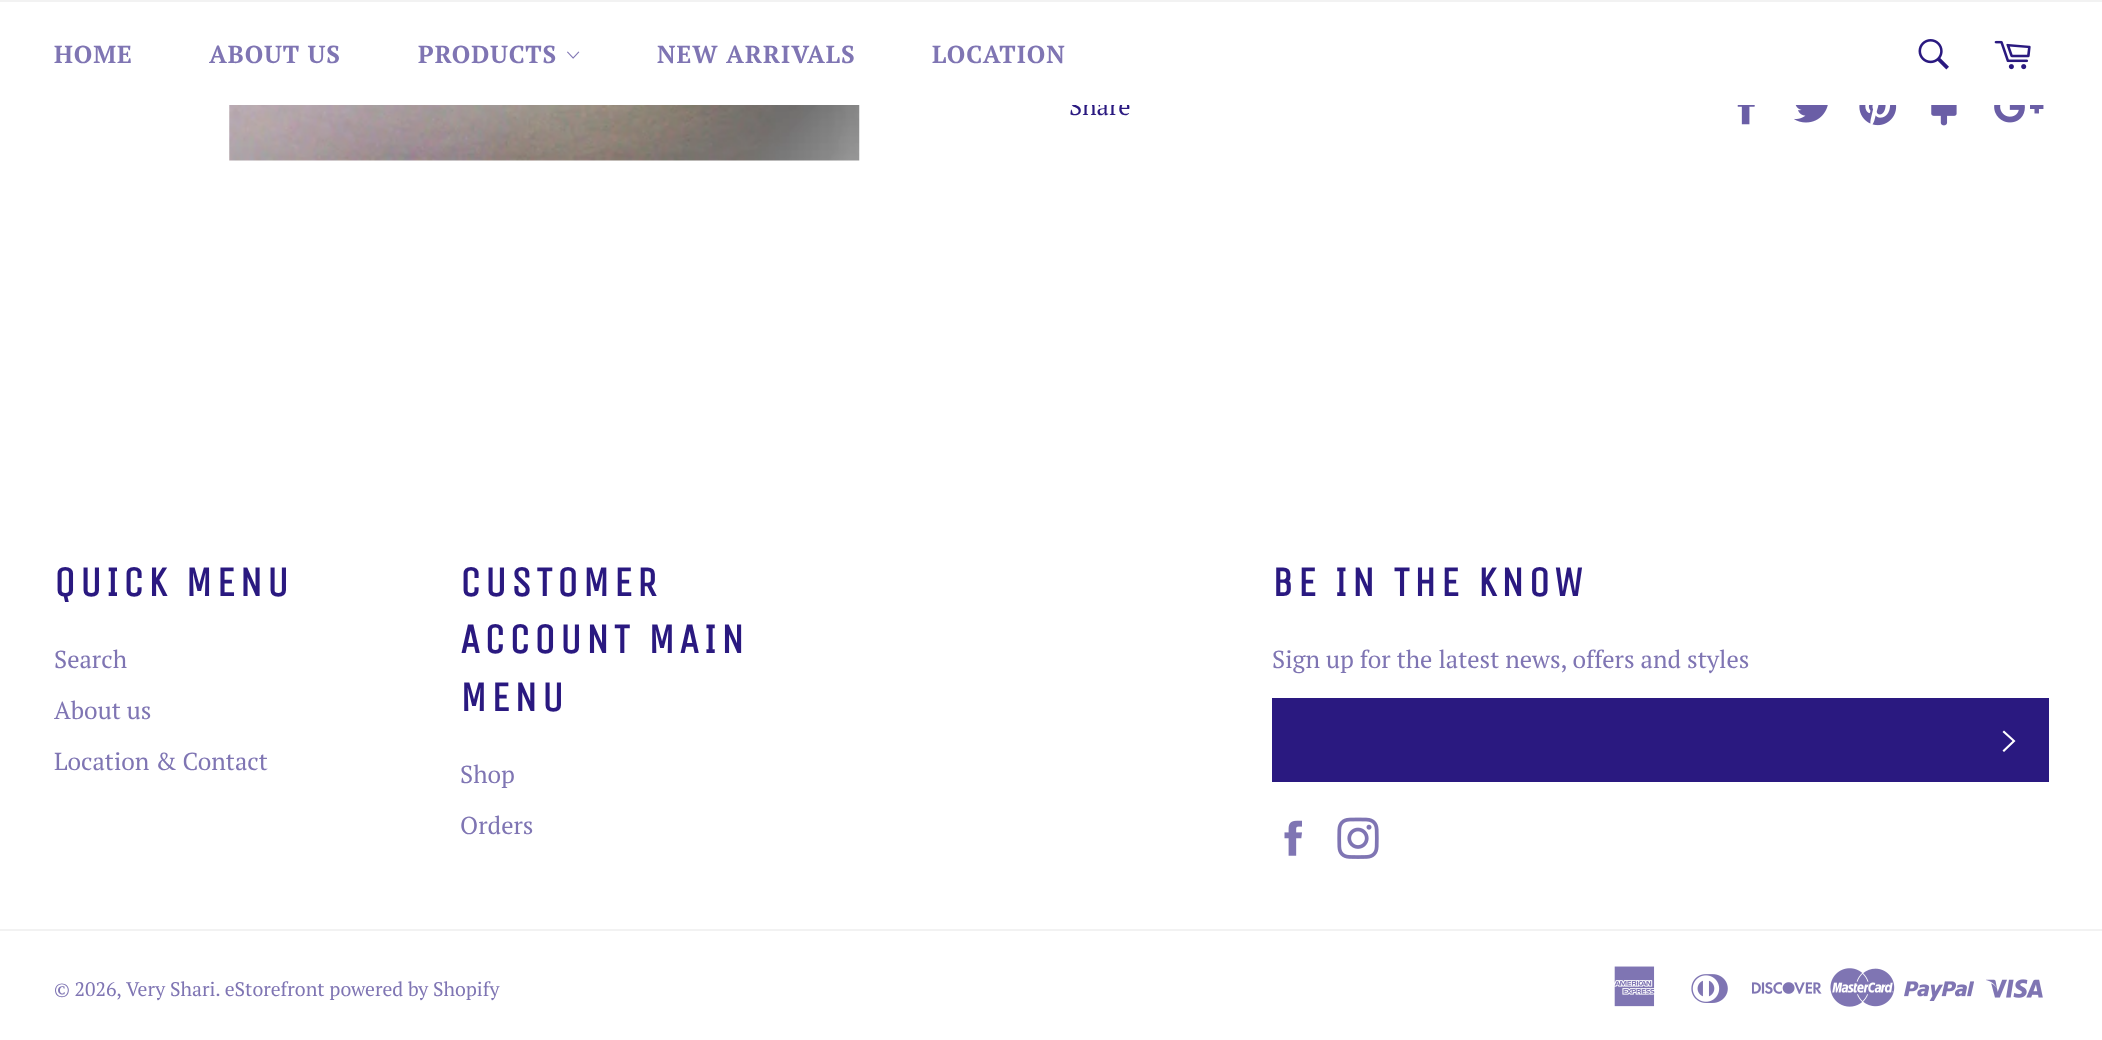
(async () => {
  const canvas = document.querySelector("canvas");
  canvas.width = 2102;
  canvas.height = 1040;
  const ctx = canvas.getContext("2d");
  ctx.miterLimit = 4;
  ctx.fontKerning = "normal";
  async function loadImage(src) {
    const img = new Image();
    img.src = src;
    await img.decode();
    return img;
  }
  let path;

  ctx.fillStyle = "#ffffff";
  ctx.fillRect(0, 0, 2102, 1040);
  ctx.fillStyle = "#f2f2f2";
  ctx.fillRect(0, 0, 2102, 2);
  ctx.drawImage(await loadImage("img/1.png"), 567, 51, 13, 8);
  ctx.drawImage(await loadImage("img/2.png"), 1918, 39, 31, 31);
  ctx.drawImage(await loadImage("img/3.png"), 1994, 40, 37, 30);
  ctx.drawImage(await loadImage("img/4.png"), 229, 105, 631, 56);
  ctx.drawImage(await loadImage("img/5.png"), 1737, 105, 18, 20);
  ctx.drawImage(await loadImage("img/6.png"), 1794, 105, 34, 18);
  ctx.drawImage(await loadImage("img/7.png"), 1859, 105, 38, 21);
  ctx.drawImage(await loadImage("img/8.png"), 1931, 105, 26, 21);
  ctx.drawImage(await loadImage("img/9.png"), 1994, 105, 50, 18);
  ctx.fillStyle = "#2a1980";
  ctx.fillRect(1272, 698, 777, 84);
  ctx.fillStyle = "#ffffff";
  path = new Path2D("M2002.5 732L2004 730.5L2015.5 741L2004 752L2002.5 750.5L2012.5 741Z");
  ctx.fill(path);
  ctx.drawImage(await loadImage("img/10.png"), 1284, 820, 18, 36);
  ctx.drawImage(await loadImage("img/11.png"), 1337, 817, 42, 42);
  ctx.fillStyle = "#f2f2f2";
  ctx.fillRect(0, 929, 2102, 2);
  ctx.drawImage(await loadImage("img/12.png"), 1614, 966, 41, 41);
  ctx.drawImage(await loadImage("img/13.png"), 1691, 974, 37, 29);
  ctx.drawImage(await loadImage("img/14.png"), 1752, 982, 70, 12);
  ctx.drawImage(await loadImage("img/15.png"), 1830, 968, 65, 39);
  ctx.drawImage(await loadImage("img/16.png"), 1904, 981, 70, 20);
  ctx.drawImage(await loadImage("img/17.png"), 1986, 979, 57, 19);
  ctx.letterSpacing = "1px";
  ctx.font = "bold 24.5px PT Serif";
  ctx.fillStyle = "#7f75b3";
  for (const [text, x, y] of [
    ["HOME", 54, 63],
    ["ABOUT US", 209, 63],
    ["PRODUCTS", 418, 63],
    ["NEW ARRIVALS", 657, 63],
    ["LOCATION", 932, 63],
  ]) {
    ctx.fillText(text, x, y);
  }
  ctx.letterSpacing = "0px";
  ctx.font = "24.5px PT Serif";
  ctx.fillStyle = "#2a1980";
  ctx.fillText("Share", 1069, 115);
  ctx.fillStyle = "#ffffff";
  ctx.fillRect(1070, 96, 60, 9);
  ctx.letterSpacing = "4.25px";
  ctx.font = "bold 42px Unica One";
  ctx.fillStyle = "#2a1980";
  ctx.fillText("QUICK MENU", 54, 596);
  ctx.letterSpacing = "0px";
  ctx.font = "24.5px PT Serif";
  ctx.fillStyle = "#7f75b3";
  for (const [text, x, y] of [
    ["Search", 54, 668],
    ["About us", 54, 719],
    ["Location & Contact", 54, 770],
  ]) {
    ctx.fillText(text, x, y);
  }
  ctx.letterSpacing = "4.25px";
  ctx.font = "bold 42px Unica One";
  ctx.fillStyle = "#2a1980";
  for (const [text, x, y] of [
    ["CUSTOMER", 460, 596],
    ["ACCOUNT MAIN", 460, 653],
    ["MENU", 460, 711],
  ]) {
    ctx.fillText(text, x, y);
  }
  ctx.letterSpacing = "0px";
  ctx.font = "24.5px PT Serif";
  ctx.fillStyle = "#7f75b3";
  ctx.fillText("Shop", 460, 783);
  ctx.fillText("Orders", 460, 834);
  ctx.letterSpacing = "4.25px";
  ctx.font = "bold 42px Unica One";
  ctx.fillStyle = "#2a1980";
  ctx.fillText("BE IN THE KNOW", 1272, 596);
  ctx.letterSpacing = "0px";
  ctx.font = "24.5px PT Serif";
  ctx.fillStyle = "#7f75b3";
  ctx.fillText("Sign up for the latest news, offers and styles", 1272, 668);
  ctx.font = "19.6px PT Serif";
  ctx.fillText("© 2026,", 54, 996);
  ctx.fillText("Very Shari. eStorefront powered by Shopify", 126, 996);
})();
